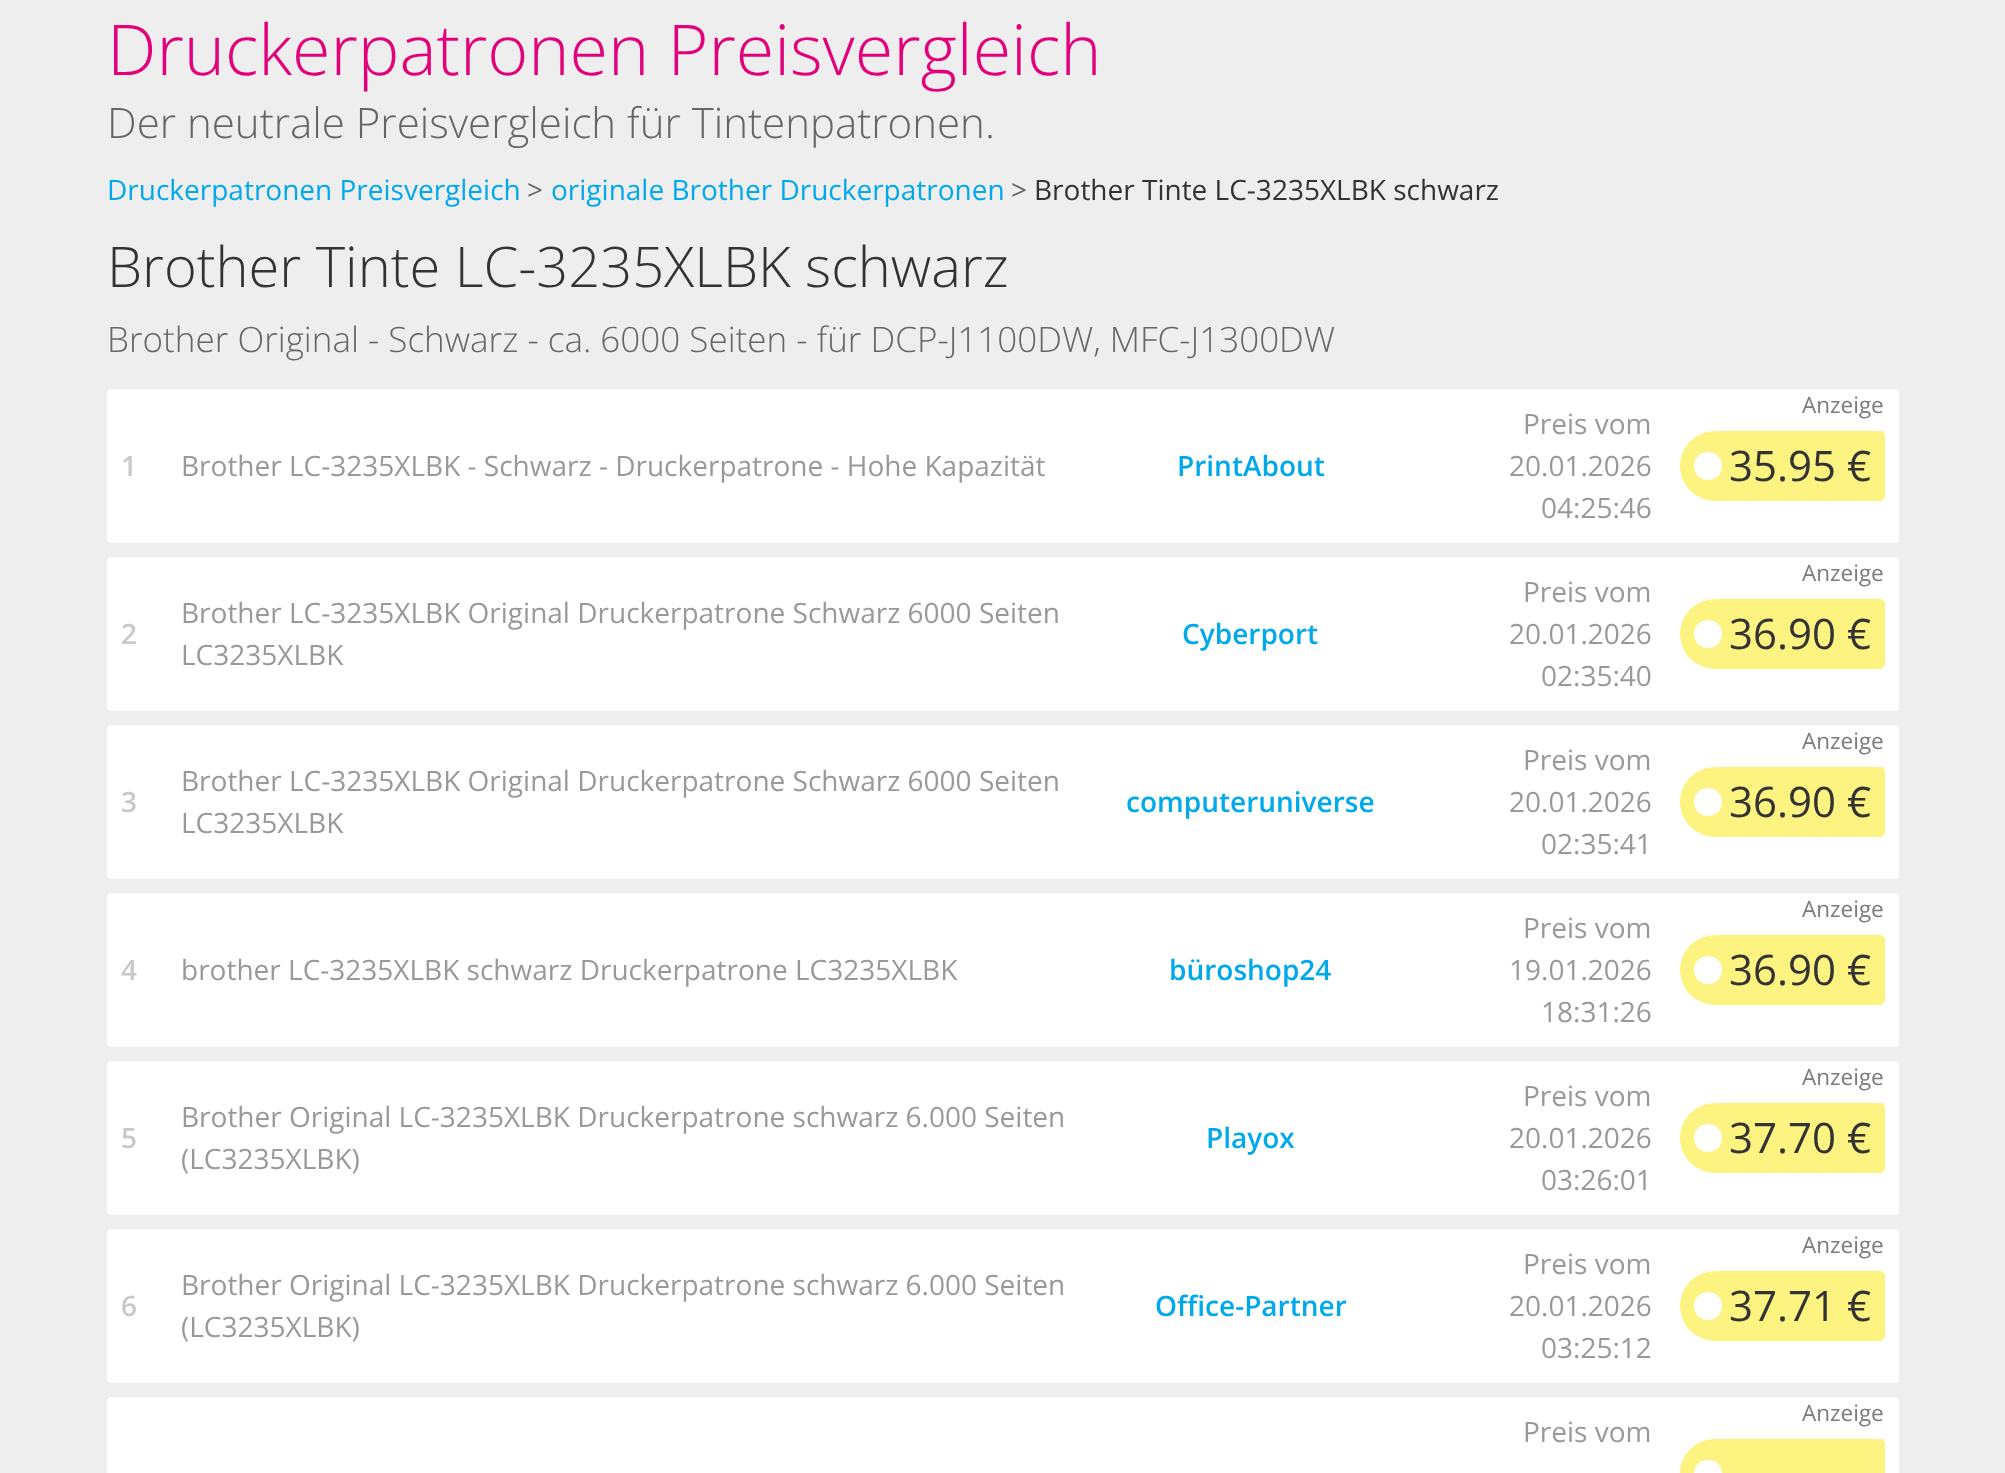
(async () => {
  const canvas = document.querySelector("canvas");
  canvas.width = 2005;
  canvas.height = 1473;
  const ctx = canvas.getContext("2d");
  ctx.miterLimit = 4;
  ctx.fontKerning = "normal";
  let path;

  ctx.fillStyle = "#eeeeee";
  ctx.fillRect(0, 0, 2005, 1473);
  ctx.fillStyle = "#ffffff";
  ctx.beginPath();
  ctx.roundRect(107, 389, 59, 154, [4, 0, 0, 4]);
  ctx.fill();
  ctx.fillRect(166, 389, 1500, 154);
  ctx.beginPath();
  ctx.roundRect(1666, 389, 233, 154, [0, 4, 4, 0]);
  ctx.fill();
  ctx.fillStyle = "#fdf380";
  ctx.beginPath();
  ctx.roundRect(1680, 431, 205, 70, [35, 5, 5, 35]);
  ctx.fill();
  ctx.fillStyle = "#ffffff";
  ctx.beginPath();
  ctx.arc(1708, 466, 14, 0, Math.PI * 2);
  ctx.fill();
  ctx.beginPath();
  ctx.roundRect(107, 557, 59, 154, [4, 0, 0, 4]);
  ctx.fill();
  ctx.fillRect(166, 557, 1500, 154);
  ctx.beginPath();
  ctx.roundRect(1666, 557, 233, 154, [0, 4, 4, 0]);
  ctx.fill();
  ctx.fillStyle = "#fdf380";
  ctx.beginPath();
  ctx.roundRect(1680, 599, 205, 70, [35, 5, 5, 35]);
  ctx.fill();
  ctx.fillStyle = "#ffffff";
  ctx.beginPath();
  ctx.arc(1708, 634, 14, 0, Math.PI * 2);
  ctx.fill();
  ctx.beginPath();
  ctx.roundRect(107, 725, 59, 154, [4, 0, 0, 4]);
  ctx.fill();
  ctx.fillRect(166, 725, 1500, 154);
  ctx.beginPath();
  ctx.roundRect(1666, 725, 233, 154, [0, 4, 4, 0]);
  ctx.fill();
  ctx.fillStyle = "#fdf380";
  ctx.beginPath();
  ctx.roundRect(1680, 767, 205, 70, [35, 5, 5, 35]);
  ctx.fill();
  ctx.fillStyle = "#ffffff";
  ctx.beginPath();
  ctx.arc(1708, 802, 14, 0, Math.PI * 2);
  ctx.fill();
  ctx.beginPath();
  ctx.roundRect(107, 893, 59, 154, [4, 0, 0, 4]);
  ctx.fill();
  ctx.fillRect(166, 893, 1500, 154);
  ctx.beginPath();
  ctx.roundRect(1666, 893, 233, 154, [0, 4, 4, 0]);
  ctx.fill();
  ctx.fillStyle = "#fdf380";
  ctx.beginPath();
  ctx.roundRect(1680, 935, 205, 70, [35, 5, 5, 35]);
  ctx.fill();
  ctx.fillStyle = "#ffffff";
  ctx.beginPath();
  ctx.arc(1708, 970, 14, 0, Math.PI * 2);
  ctx.fill();
  ctx.beginPath();
  ctx.roundRect(107, 1061, 59, 154, [4, 0, 0, 4]);
  ctx.fill();
  ctx.fillRect(166, 1061, 1500, 154);
  ctx.beginPath();
  ctx.roundRect(1666, 1061, 233, 154, [0, 4, 4, 0]);
  ctx.fill();
  ctx.fillStyle = "#fdf380";
  ctx.beginPath();
  ctx.roundRect(1680, 1103, 205, 70, [35, 5, 5, 35]);
  ctx.fill();
  ctx.fillStyle = "#ffffff";
  ctx.beginPath();
  ctx.arc(1708, 1138, 14, 0, Math.PI * 2);
  ctx.fill();
  ctx.beginPath();
  ctx.roundRect(107, 1229, 59, 154, [4, 0, 0, 4]);
  ctx.fill();
  ctx.fillRect(166, 1229, 1500, 154);
  ctx.beginPath();
  ctx.roundRect(1666, 1229, 233, 154, [0, 4, 4, 0]);
  ctx.fill();
  ctx.fillStyle = "#fdf380";
  ctx.beginPath();
  ctx.roundRect(1680, 1271, 205, 70, [35, 5, 5, 35]);
  ctx.fill();
  ctx.fillStyle = "#ffffff";
  ctx.beginPath();
  ctx.arc(1708, 1306, 14, 0, Math.PI * 2);
  ctx.fill();
  path = new Path2D("M111 1397H166V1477H111C109 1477 107 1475 107 1473V1401C107 1399 109 1397 111 1397Z");
  ctx.fill(path);
  ctx.fillRect(166, 1397, 1500, 76);
  path = new Path2D("M1666 1397H1895C1897 1397 1899 1399 1899 1401V1473C1899 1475 1897 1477 1895 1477H1666Z");
  ctx.fill(path);
  ctx.fillStyle = "#fdf380";
  path = new Path2D("M1715 1439H1880C1883 1439 1885 1441 1885 1444V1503C1885 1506 1883 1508 1880 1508H1715C1695.5 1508 1680 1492.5 1680 1473V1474C1680 1454.5 1695.5 1439 1715 1439Z");
  ctx.fill(path);
  ctx.fillStyle = "#ffffff";
  ctx.beginPath();
  ctx.roundRect(1694, 1460, 28, 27, 14);
  ctx.fill();
  ctx.font = "300 70px Open Sans";
  ctx.fillStyle = "#e3007b";
  ctx.fillText("Druckerpatronen Preisvergleich", 107, 75);
  ctx.font = "300 42px Open Sans";
  ctx.fillStyle = "#666666";
  ctx.fillText("Der neutrale Preisvergleich für Tintenpatronen.", 107, 138);
  ctx.font = "28px Open Sans";
  ctx.fillStyle = "#00a8ec";
  ctx.fillText("Druckerpatronen Preisvergleich", 107, 200);
  ctx.fillStyle = "#666666";
  ctx.fillText(">", 527, 200);
  ctx.fillStyle = "#00a8ec";
  ctx.fillText("originale Brother Druckerpatronen", 551, 200);
  ctx.fillStyle = "#666666";
  ctx.fillText(">", 1011, 200);
  ctx.fillStyle = "#333333";
  ctx.fillText("Brother Tinte LC-3235XLBK schwarz", 1034, 200);
  ctx.font = "300 56px Open Sans";
  ctx.fillText("Brother Tinte LC-3235XLBK schwarz", 107, 287);
  ctx.font = "300 35px Open Sans";
  ctx.fillStyle = "#666666";
  ctx.fillText("Brother Original - Schwarz - ca. 6000 Seiten - für DCP-J1100DW, MFC-J1300DW", 107, 352);
  ctx.font = "600 28px Open Sans";
  ctx.fillStyle = "#c9c9c9";
  ctx.fillText("1", 121, 476);
  ctx.font = "28px Open Sans";
  ctx.fillStyle = "#999999";
  ctx.fillText("Brother LC-3235XLBK - Schwarz - Druckerpatrone - Hohe Kapazität", 181, 476);
  ctx.font = "600 28px Open Sans";
  ctx.fillStyle = "#00a8ec";
  ctx.fillText("PrintAbout", 1177, 476);
  ctx.font = "28px Open Sans";
  ctx.fillStyle = "#999999";
  for (const [text, x, y] of [
    ["Preis vom", 1523, 434],
    ["20.01.2026", 1509, 476],
    ["04:25:46", 1541, 518],
  ]) {
    ctx.fillText(text, x, y);
  }
  ctx.font = "22.5px Open Sans";
  ctx.fillStyle = "#7b7b7b";
  ctx.fillText("Anzeige", 1802, 413);
  ctx.font = "42px Open Sans";
  ctx.fillStyle = "#333333";
  ctx.fillText("35.95 €", 1729, 481);
  ctx.font = "600 28px Open Sans";
  ctx.fillStyle = "#c9c9c9";
  ctx.fillText("2", 121, 644);
  ctx.font = "28px Open Sans";
  ctx.fillStyle = "#999999";
  ctx.fillText("Brother LC-3235XLBK Original Druckerpatrone Schwarz 6000 Seiten", 181, 623);
  ctx.fillText("LC3235XLBK", 181, 665);
  ctx.font = "600 28px Open Sans";
  ctx.fillStyle = "#00a8ec";
  ctx.fillText("Cyberport", 1182, 644);
  ctx.font = "28px Open Sans";
  ctx.fillStyle = "#999999";
  for (const [text, x, y] of [
    ["Preis vom", 1523, 602],
    ["20.01.2026", 1509, 644],
    ["02:35:40", 1541, 686],
  ]) {
    ctx.fillText(text, x, y);
  }
  ctx.font = "22.5px Open Sans";
  ctx.fillStyle = "#7b7b7b";
  ctx.fillText("Anzeige", 1802, 581);
  ctx.font = "42px Open Sans";
  ctx.fillStyle = "#333333";
  ctx.fillText("36.90 €", 1729, 649);
  ctx.font = "600 28px Open Sans";
  ctx.fillStyle = "#c9c9c9";
  ctx.fillText("3", 121, 812);
  ctx.font = "28px Open Sans";
  ctx.fillStyle = "#999999";
  ctx.fillText("Brother LC-3235XLBK Original Druckerpatrone Schwarz 6000 Seiten", 181, 791);
  ctx.fillText("LC3235XLBK", 181, 833);
  ctx.font = "600 28px Open Sans";
  ctx.fillStyle = "#00a8ec";
  ctx.fillText("computeruniverse", 1126, 812);
  ctx.font = "28px Open Sans";
  ctx.fillStyle = "#999999";
  for (const [text, x, y] of [
    ["Preis vom", 1523, 770],
    ["20.01.2026", 1509, 812],
    ["02:35:41", 1541, 854],
  ]) {
    ctx.fillText(text, x, y);
  }
  ctx.font = "22.5px Open Sans";
  ctx.fillStyle = "#7b7b7b";
  ctx.fillText("Anzeige", 1802, 749);
  ctx.font = "42px Open Sans";
  ctx.fillStyle = "#333333";
  ctx.fillText("36.90 €", 1729, 817);
  ctx.font = "600 28px Open Sans";
  ctx.fillStyle = "#c9c9c9";
  ctx.fillText("4", 121, 980);
  ctx.font = "28px Open Sans";
  ctx.fillStyle = "#999999";
  ctx.fillText("brother LC-3235XLBK schwarz Druckerpatrone LC3235XLBK", 181, 980);
  ctx.font = "600 28px Open Sans";
  ctx.fillStyle = "#00a8ec";
  ctx.fillText("büroshop24", 1169, 980);
  ctx.font = "28px Open Sans";
  ctx.fillStyle = "#999999";
  for (const [text, x, y] of [
    ["Preis vom", 1523, 938],
    ["19.01.2026", 1509, 980],
    ["18:31:26", 1541, 1022],
  ]) {
    ctx.fillText(text, x, y);
  }
  ctx.font = "22.5px Open Sans";
  ctx.fillStyle = "#7b7b7b";
  ctx.fillText("Anzeige", 1802, 917);
  ctx.font = "42px Open Sans";
  ctx.fillStyle = "#333333";
  ctx.fillText("36.90 €", 1729, 985);
  ctx.font = "600 28px Open Sans";
  ctx.fillStyle = "#c9c9c9";
  ctx.fillText("5", 121, 1148);
  ctx.font = "28px Open Sans";
  ctx.fillStyle = "#999999";
  ctx.fillText("Brother Original LC-3235XLBK Druckerpatrone schwarz 6.000 Seiten", 181, 1127);
  ctx.fillText("(LC3235XLBK)", 181, 1169);
  ctx.font = "600 28px Open Sans";
  ctx.fillStyle = "#00a8ec";
  ctx.fillText("Playox", 1206, 1148);
  ctx.font = "28px Open Sans";
  ctx.fillStyle = "#999999";
  for (const [text, x, y] of [
    ["Preis vom", 1523, 1106],
    ["20.01.2026", 1509, 1148],
    ["03:26:01", 1541, 1190],
  ]) {
    ctx.fillText(text, x, y);
  }
  ctx.font = "22.5px Open Sans";
  ctx.fillStyle = "#7b7b7b";
  ctx.fillText("Anzeige", 1802, 1085);
  ctx.font = "42px Open Sans";
  ctx.fillStyle = "#333333";
  ctx.fillText("37.70 €", 1729, 1153);
  ctx.font = "600 28px Open Sans";
  ctx.fillStyle = "#c9c9c9";
  ctx.fillText("6", 121, 1316);
  ctx.font = "28px Open Sans";
  ctx.fillStyle = "#999999";
  ctx.fillText("Brother Original LC-3235XLBK Druckerpatrone schwarz 6.000 Seiten", 181, 1295);
  ctx.fillText("(LC3235XLBK)", 181, 1337);
  ctx.font = "600 28px Open Sans";
  ctx.fillStyle = "#00a8ec";
  ctx.fillText("Office-Partner", 1155, 1316);
  ctx.font = "28px Open Sans";
  ctx.fillStyle = "#999999";
  for (const [text, x, y] of [
    ["Preis vom", 1523, 1274],
    ["20.01.2026", 1509, 1316],
    ["03:25:12", 1541, 1358],
  ]) {
    ctx.fillText(text, x, y);
  }
  ctx.font = "22.5px Open Sans";
  ctx.fillStyle = "#7b7b7b";
  ctx.fillText("Anzeige", 1802, 1253);
  ctx.font = "42px Open Sans";
  ctx.fillStyle = "#333333";
  ctx.fillText("37.71 €", 1729, 1321);
  ctx.font = "22.5px Open Sans";
  ctx.fillStyle = "#7b7b7b";
  ctx.fillText("Anzeige", 1802, 1421);
  ctx.font = "28px Open Sans";
  ctx.fillStyle = "#999999";
  ctx.fillText("Preis vom", 1523, 1442);
})();
